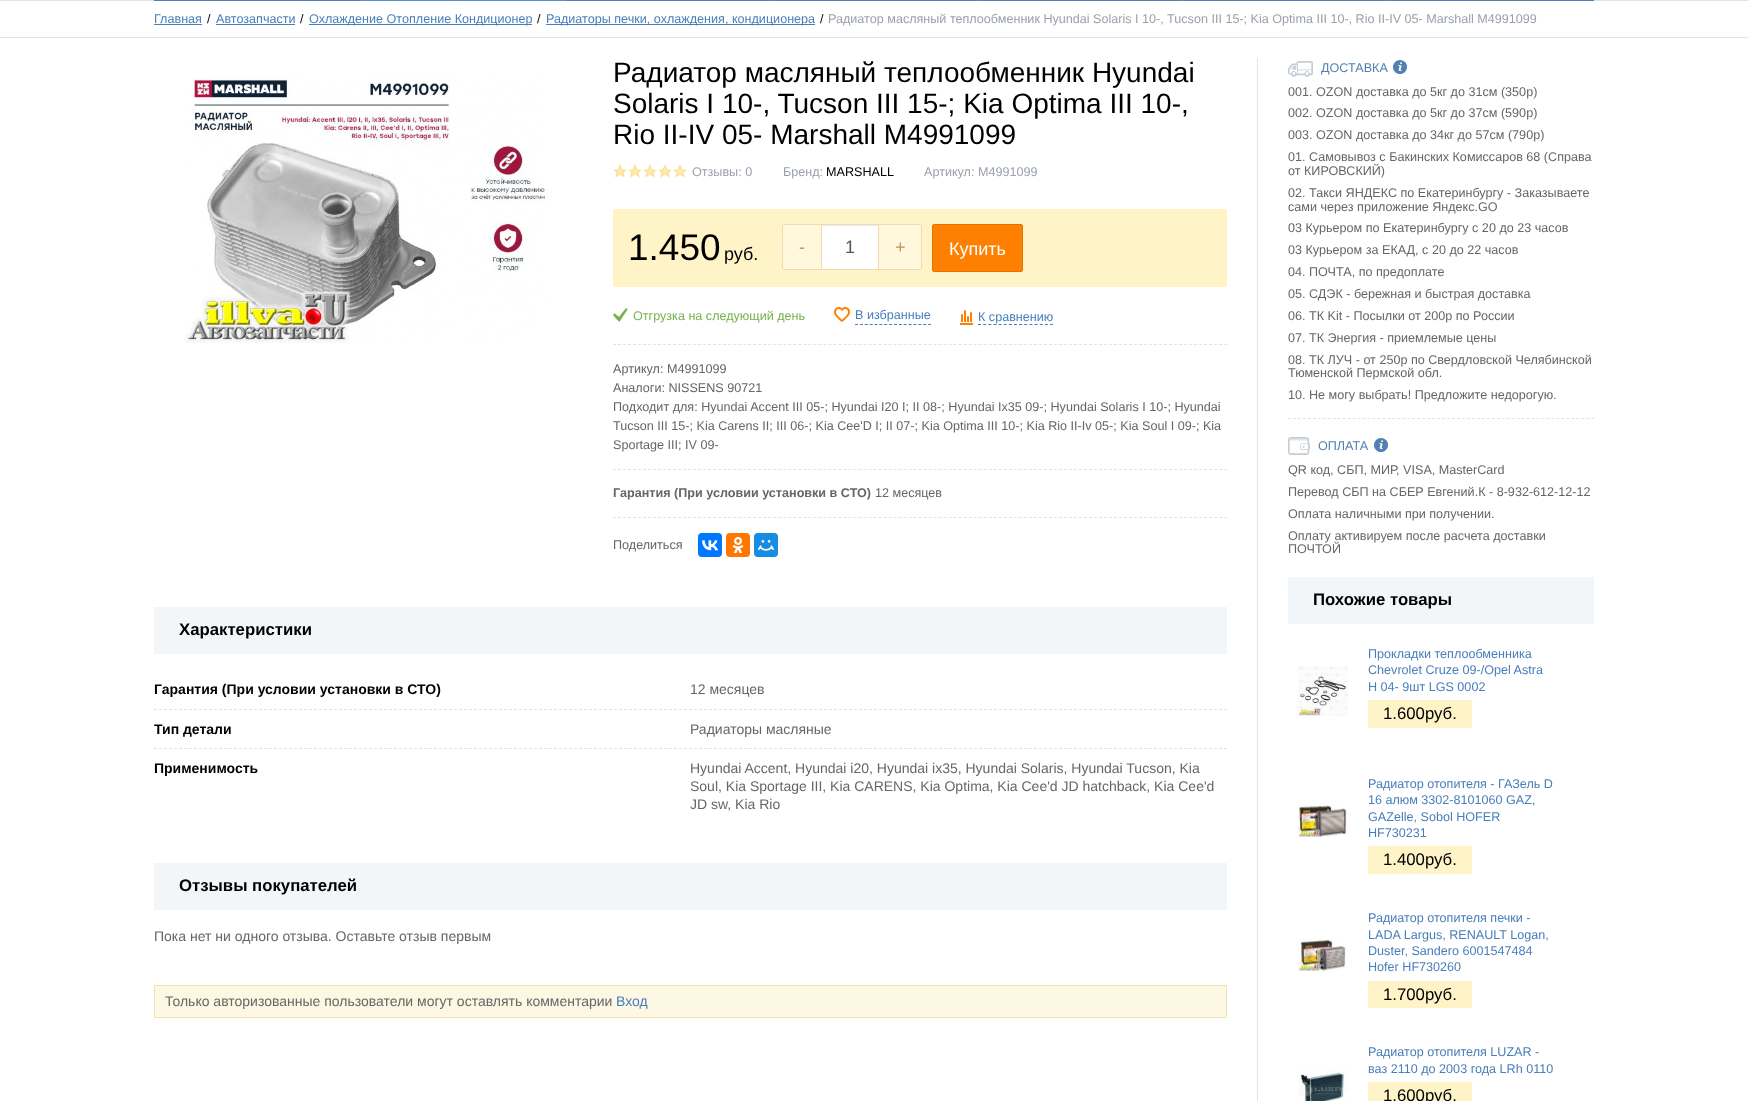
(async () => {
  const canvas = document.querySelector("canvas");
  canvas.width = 1748;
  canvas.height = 1101;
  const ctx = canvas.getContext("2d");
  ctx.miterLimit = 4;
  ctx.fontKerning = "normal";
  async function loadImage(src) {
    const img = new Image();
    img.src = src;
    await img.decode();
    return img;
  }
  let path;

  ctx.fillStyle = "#ffffff";
  ctx.fillRect(0, 0, 1748, 1101);
  for (const [x, y, w, h, color] of [
    [0, 0, 1748, 1, "#dfe4eb"],
    [154, 0, 206, 1, "#5280b2"],
    [360, 0, 1, 1, "#6996c7"],
    [361, 0, 204, 1, "#5b90ce"],
    [565, 0, 1029, 1, "#5280b2"],
    [565, 0, 1, 1, "#6996c7"],
    [771, 0, 1, 1, "#6996c7"],
    [977, 0, 1, 1, "#6996c7"],
    [1183, 0, 1, 1, "#6996c7"],
    [1388, 0, 1, 1, "#6996c7"],
    [0, 37, 1748, 1, "#dfe4eb"],
    [154, 24, 48, 1, "#487ebb"],
    [216, 24, 79, 1, "#487ebb"],
    [309, 24, 223, 1, "#487ebb"],
    [546, 24, 269, 1, "#487ebb"],
  ]) {
    ctx.fillStyle = color;
    ctx.fillRect(x, y, w, h);
  }
  ctx.drawImage(await loadImage("img/1.png"), 185, 77, 363, 266);
  ctx.drawImage(await loadImage("img/2.png"), 613, 164, 14, 14);
  ctx.drawImage(await loadImage("img/2.png"), 628, 164, 14, 14);
  ctx.drawImage(await loadImage("img/2.png"), 643, 164, 14, 14);
  ctx.drawImage(await loadImage("img/2.png"), 658, 164, 14, 14);
  ctx.drawImage(await loadImage("img/2.png"), 673, 164, 14, 14);
  ctx.fillStyle = "#fff4c7";
  ctx.fillRect(613, 209, 614, 78);
  ctx.fillStyle = "#fff8dd";
  ctx.beginPath();
  ctx.roundRect(782.5, 224.5, 39, 45, [1.5, 0, 0, 1.5]);
  ctx.fill();
  ctx.strokeStyle = "#eedbb2";
  ctx.stroke();
  ctx.fillStyle = "#ffffff";
  ctx.fillRect(822, 226, 56, 43);
  ctx.fillStyle = "#ececec";
  ctx.fillRect(822, 225, 56, 1);
  ctx.strokeRect(821.5, 224.5, 57, 45);
  ctx.fillStyle = "#fff8dd";
  ctx.beginPath();
  ctx.roundRect(878.5, 224.5, 43, 45, [0, 1.5, 1.5, 0]);
  ctx.fill();
  ctx.stroke();
  ctx.fillStyle = "#ff8001";
  ctx.beginPath();
  ctx.roundRect(932.5, 224.5, 90, 47, 1.5);
  ctx.fill();
  ctx.strokeStyle = "#e77300";
  ctx.stroke();
  ctx.drawImage(await loadImage("img/3.png"), 613, 308, 15, 14);
  ctx.drawImage(await loadImage("img/4.png"), 834, 307, 16, 15);
  path = new Path2D("M855 324.5H931");
  ctx.strokeStyle = "#487ebb";
  ctx.setLineDash([3, 1.87]);
  ctx.stroke(path);
  ctx.drawImage(await loadImage("img/5.png"), 960, 310, 13, 15);
  path = new Path2D("M978 324.5H1053");
  ctx.setLineDash([3, 2.14]);
  ctx.stroke(path);
  path = new Path2D("M613 344.5H1227");
  ctx.strokeStyle = "#dfe4eb";
  ctx.setLineDash([3, 2.01]);
  ctx.stroke(path);
  path = new Path2D("M613 469.5H1227");
  ctx.stroke(path);
  path = new Path2D("M613 517.5H1227");
  ctx.stroke(path);
  ctx.fillStyle = "#0077ff";
  ctx.beginPath();
  ctx.roundRect(698, 533, 24, 24, 4);
  ctx.fill();
  ctx.drawImage(await loadImage("img/6.png"), 702, 540, 16, 11);
  ctx.fillStyle = "#ff7700";
  ctx.beginPath();
  ctx.roundRect(726, 533, 24, 24, 4);
  ctx.fill();
  ctx.drawImage(await loadImage("img/7.png"), 732, 537, 12, 16);
  ctx.fillStyle = "#168de2";
  ctx.beginPath();
  ctx.roundRect(754, 533, 24, 24, 4);
  ctx.fill();
  ctx.drawImage(await loadImage("img/8.png"), 758, 540, 16, 11);
  ctx.fillStyle = "#f2f6f9";
  ctx.fillRect(154, 607, 1073, 47);
  path = new Path2D("M154 709.5H1227");
  ctx.setLineDash([3, 2]);
  ctx.stroke(path);
  path = new Path2D("M154 748.5H1227");
  ctx.stroke(path);
  ctx.fillRect(154, 863, 1073, 47);
  ctx.fillStyle = "#fcf8e3";
  ctx.beginPath();
  ctx.rect(154.5, 985.5, 1072, 32);
  ctx.fill();
  ctx.strokeStyle = "#efe4ae";
  ctx.setLineDash([]);
  ctx.stroke();
  ctx.fillStyle = "#dfe4eb";
  ctx.fillRect(1257, 58, 1, 1043);
  path = new Path2D("M1288 418.5H1594");
  ctx.strokeStyle = "#dfe4eb";
  ctx.setLineDash([3, 1.97]);
  ctx.stroke(path);
  ctx.drawImage(await loadImage("img/9.png"), 1288, 61, 25, 16);
  ctx.drawImage(await loadImage("img/10.png"), 1393, 60, 14, 14);
  ctx.drawImage(await loadImage("img/11.png"), 1288, 437, 22, 18);
  ctx.drawImage(await loadImage("img/12.png"), 1374, 438, 14, 14);
  ctx.fillStyle = "#f2f6f9";
  ctx.fillRect(1288, 577, 306, 47);
  ctx.drawImage(await loadImage("img/13.png"), 1298, 666, 50, 50);
  ctx.fillStyle = "#fff4c7";
  ctx.fillRect(1368, 700, 104, 28);
  ctx.drawImage(await loadImage("img/14.png"), 1298, 804, 49, 34);
  ctx.fillRect(1368, 846, 104, 28);
  ctx.drawImage(await loadImage("img/15.png"), 1298, 938, 48, 33);
  ctx.fillRect(1368, 981, 104, 27);
  ctx.drawImage(await loadImage("img/16.png"), 1298, 1067, 50, 34);
  ctx.fillRect(1368, 1082, 104, 19);
  ctx.font = "12.6px Liberation Sans";
  ctx.fillStyle = "#487ebb";
  ctx.fillText("Главная", 154, 23);
  ctx.fillStyle = "#000000";
  ctx.fillText("/", 207, 23);
  ctx.fillStyle = "#487ebb";
  ctx.fillText("Автозапчасти", 216, 23);
  ctx.fillStyle = "#000000";
  ctx.fillText("/", 300, 23);
  ctx.fillStyle = "#487ebb";
  ctx.fillText("Охлаждение Отопление Кондиционер", 309, 23);
  ctx.fillStyle = "#000000";
  ctx.fillText("/", 537, 23);
  ctx.fillStyle = "#487ebb";
  ctx.fillText("Радиаторы печки, охлаждения, кондиционера", 546, 23);
  ctx.fillStyle = "#000000";
  ctx.fillText("/", 820, 23);
  ctx.fillStyle = "#9aa1ab";
  ctx.fillText("Радиатор масляный теплообменник Hyundai Solaris I 10-, Tucson III 15-; Kia Optima III 10-, Rio II-IV 05- Marshall M4991099", 828, 23);
  ctx.font = "28px Liberation Sans";
  ctx.fillStyle = "#000000";
  for (const [text, x, y] of [
    ["Радиатор масляный теплообменник Hyundai", 613, 82],
    ["Solaris I 10-, Tucson III 15-; Kia Optima III 10-,", 613, 113],
    ["Rio II-IV 05- Marshall M4991099", 613, 144],
  ]) {
    ctx.fillText(text, x, y);
  }
  ctx.font = "12.6px Liberation Sans";
  ctx.fillStyle = "#9aa1ab";
  ctx.fillText("Отзывы: 0", 692, 176);
  ctx.fillText("Бренд:", 783, 176);
  ctx.fillStyle = "#000000";
  ctx.fillText("MARSHALL", 826, 176);
  ctx.fillStyle = "#9aa1ab";
  ctx.fillText("Артикул: M4991099", 924, 176);
  ctx.font = "37px Liberation Sans";
  ctx.fillStyle = "#000000";
  ctx.fillText("1.450", 628, 260);
  ctx.font = "18px Liberation Sans";
  ctx.fillText("руб.", 724, 260);
  ctx.fillStyle = "#ba9659";
  ctx.fillText("-", 799, 253);
  ctx.fillStyle = "#555555";
  ctx.fillText("1", 845, 253);
  ctx.fillStyle = "#ba9659";
  ctx.fillText("+", 895, 253);
  ctx.fillStyle = "#ffffff";
  ctx.fillText("Купить", 949, 255);
  ctx.font = "12.6px Liberation Sans";
  ctx.fillStyle = "#75b24d";
  ctx.fillText("Отгрузка на следующий день", 633, 320);
  ctx.fillStyle = "#487ebb";
  ctx.fillText("В избранные", 855, 319);
  ctx.fillText("К сравнению", 978, 321);
  ctx.fillStyle = "#666666";
  for (const [text, x, y] of [
    ["Артикул: M4991099", 613, 373],
    ["Аналоги: NISSENS 90721", 613, 392],
    ["Подходит для: Hyundai Accent III 05-; Hyundai I20 I; II 08-; Hyundai Ix35 09-; Hyundai Solaris I 10-; Hyundai", 613, 411],
    ["Tucson III 15-; Kia Carens II; III 06-; Kia Cee'D I; II 07-; Kia Optima III 10-; Kia Rio II-Iv 05-; Kia Soul I 09-; Kia", 613, 430],
    ["Sportage III; IV 09-", 613, 449],
  ]) {
    ctx.fillText(text, x, y);
  }
  ctx.font = "bold 12.6px Liberation Sans";
  ctx.fillText("Гарантия (При условии установки в СТО)", 613, 497);
  ctx.font = "12.6px Liberation Sans";
  ctx.fillText("12 месяцев", 875, 497);
  ctx.fillText("Поделиться", 613, 549);
  ctx.font = "bold 16.75px Liberation Sans";
  ctx.fillStyle = "#000000";
  ctx.fillText("Характеристики", 179, 635);
  ctx.font = "bold 14px Liberation Sans";
  ctx.fillText("Гарантия (При условии установки в СТО)", 154, 694);
  ctx.font = "14px Liberation Sans";
  ctx.fillStyle = "#666666";
  ctx.fillText("12 месяцев", 690, 694);
  ctx.font = "bold 14px Liberation Sans";
  ctx.fillStyle = "#000000";
  ctx.fillText("Тип детали", 154, 734);
  ctx.font = "14px Liberation Sans";
  ctx.fillStyle = "#666666";
  ctx.fillText("Радиаторы масляные", 690, 734);
  ctx.font = "bold 14px Liberation Sans";
  ctx.fillStyle = "#000000";
  ctx.fillText("Применимость", 154, 773);
  ctx.font = "14px Liberation Sans";
  ctx.fillStyle = "#666666";
  for (const [text, x, y] of [
    ["Hyundai Accent, Hyundai i20, Hyundai ix35, Hyundai Solaris, Hyundai Tucson, Kia", 690, 773],
    ["Soul, Kia Sportage III, Kia CARENS, Kia Optima, Kia Cee'd JD hatchback, Kia Cee'd", 690, 791],
    ["JD sw, Kia Rio", 690, 809],
  ]) {
    ctx.fillText(text, x, y);
  }
  ctx.font = "bold 16.75px Liberation Sans";
  ctx.fillStyle = "#000000";
  ctx.fillText("Отзывы покупателей", 179, 891);
  ctx.font = "14px Liberation Sans";
  ctx.fillStyle = "#666666";
  ctx.fillText("Пока нет ни одного отзыва. Оставьте отзыв первым", 154, 941);
  ctx.fillText("Только авторизованные пользователи могут оставлять комментарии", 165, 1006);
  ctx.fillStyle = "#487ebb";
  ctx.fillText("Вход", 616, 1006);
  ctx.font = "12.6px Liberation Sans";
  ctx.fillStyle = "#5280b2";
  ctx.fillText("ДОСТАВКА", 1321, 72);
  ctx.fillStyle = "#666666";
  for (const [text, x, y] of [
    ["001. OZON доставка до 5кг до 31см (350р)", 1288, 96],
    ["002. OZON доставка до 5кг до 37см (590р)", 1288, 117],
    ["003. OZON доставка до 34кг до 57см (790р)", 1288, 139],
    ["01. Самовывоз с Бакинских Комиссаров 68 (Справа", 1288, 161],
    ["от КИРОВСКИЙ)", 1288, 175],
    ["02. Такси ЯНДЕКС по Екатеринбургу - Заказываете", 1288, 197],
    ["сами через приложение Яндекс.GO", 1288, 211],
    ["03 Курьером по Екатеринбургу с 20 до 23 часов", 1288, 232],
    ["03 Курьером за ЕКАД, с 20 до 22 часов", 1288, 254],
    ["04. ПОЧТА, по предоплате", 1288, 276],
    ["05. СДЭК - бережная и быстрая доставка", 1288, 298],
    ["06. ТК Kit - Посылки от 200р по России", 1288, 320],
    ["07. ТК Энергия - приемлемые цены", 1288, 342],
    ["08. ТК ЛУЧ - от 250р по Свердловской Челябинской", 1288, 364],
    ["Тюменской Пермской обл.", 1288, 377],
    ["10. Не могу выбрать! Предложите недорогую.", 1288, 399],
  ]) {
    ctx.fillText(text, x, y);
  }
  ctx.fillStyle = "#5280b2";
  ctx.fillText("ОПЛАТА", 1318, 450);
  ctx.fillStyle = "#666666";
  for (const [text, x, y] of [
    ["QR код, СБП, МИР, VISA, MasterCard", 1288, 474],
    ["Перевод СБП на СБЕР Евгений.К - 8-932-612-12-12", 1288, 496],
    ["Оплата наличными при получении.", 1288, 518],
    ["Оплату активируем после расчета доставки", 1288, 540],
    ["ПОЧТОЙ", 1288, 553],
  ]) {
    ctx.fillText(text, x, y);
  }
  ctx.font = "bold 16.75px Liberation Sans";
  ctx.fillStyle = "#000000";
  ctx.fillText("Похожие товары", 1313, 605);
  ctx.font = "12.6px Liberation Sans";
  ctx.fillStyle = "#487ebb";
  for (const [text, x, y] of [
    ["Прокладки теплообменника", 1368, 658],
    ["Chevrolet Cruze 09-/Opel Astra", 1368, 674],
    ["H 04- 9шт LGS 0002", 1368, 691],
  ]) {
    ctx.fillText(text, x, y);
  }
  ctx.font = "16.75px Liberation Sans";
  ctx.fillStyle = "#000000";
  ctx.fillText("1.600руб.", 1383, 719);
  ctx.font = "12.6px Liberation Sans";
  ctx.fillStyle = "#487ebb";
  for (const [text, x, y] of [
    ["Радиатор отопителя - ГАЗель D", 1368, 788],
    ["16 алюм 3302-8101060 GAZ,", 1368, 804],
    ["GAZelle, Sobol HOFER", 1368, 821],
    ["HF730231", 1368, 837],
  ]) {
    ctx.fillText(text, x, y);
  }
  ctx.font = "16.75px Liberation Sans";
  ctx.fillStyle = "#000000";
  ctx.fillText("1.400руб.", 1383, 865);
  ctx.font = "12.6px Liberation Sans";
  ctx.fillStyle = "#487ebb";
  for (const [text, x, y] of [
    ["Радиатор отопителя печки -", 1368, 922],
    ["LADA Largus, RENAULT Logan,", 1368, 939],
    ["Duster, Sandero 6001547484", 1368, 955],
    ["Hofer HF730260", 1368, 971],
  ]) {
    ctx.fillText(text, x, y);
  }
  ctx.font = "16.75px Liberation Sans";
  ctx.fillStyle = "#000000";
  ctx.fillText("1.700руб.", 1383, 1000);
  ctx.font = "12.6px Liberation Sans";
  ctx.fillStyle = "#487ebb";
  ctx.fillText("Радиатор отопителя LUZAR -", 1368, 1056);
  ctx.fillText("ваз 2110 до 2003 года LRh 0110", 1368, 1073);
  ctx.font = "16.75px Liberation Sans";
  ctx.fillStyle = "#000000";
  ctx.fillText("1.600руб.", 1383, 1101);
})();
